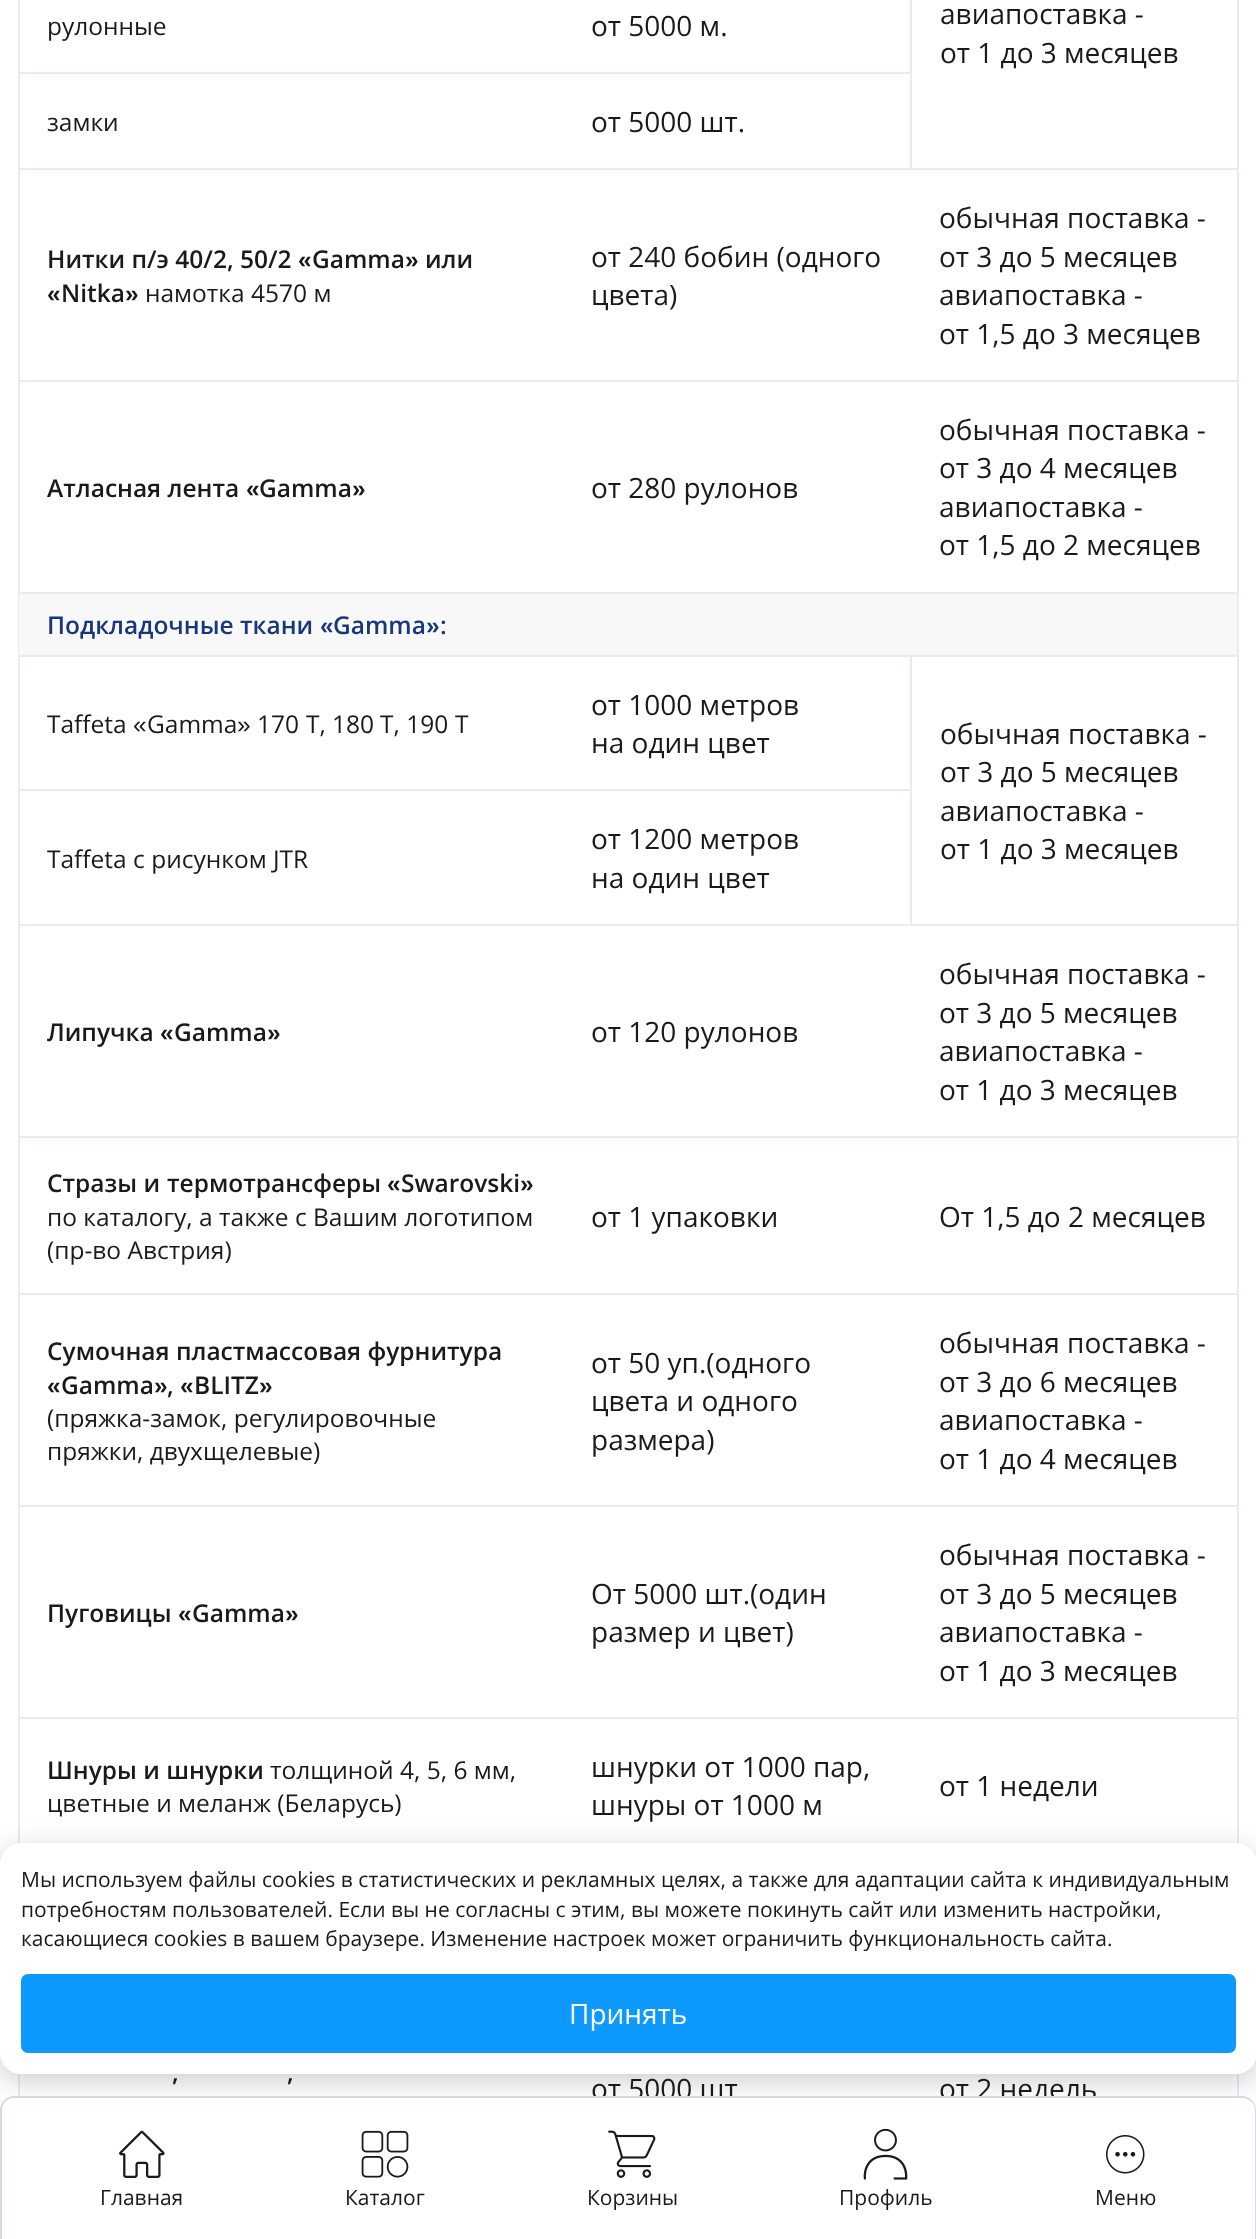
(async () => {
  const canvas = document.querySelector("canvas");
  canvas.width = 1256;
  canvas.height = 2239;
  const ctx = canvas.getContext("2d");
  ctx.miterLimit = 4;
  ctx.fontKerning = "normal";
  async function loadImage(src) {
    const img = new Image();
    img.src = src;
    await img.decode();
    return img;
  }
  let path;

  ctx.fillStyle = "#ffffff";
  ctx.fillRect(0, 0, 1256, 2239);
  ctx.strokeStyle = "#e8ebf2";
  ctx.lineWidth = 2;
  ctx.strokeRect(19, -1, 1219, 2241);
  for (const [x, y, w, h, color] of [
    [19, 72, 893, 2, "#e8ebf2"],
    [19, 168, 1218, 2, "#e8ebf2"],
    [910, 0, 2, 170, "#e8ebf2"],
    [19, 380, 1218, 2, "#e8ebf2"],
    [19, 592, 1218, 2, "#e8ebf2"],
    [19, 594, 1218, 61, "#f8f8f8"],
    [19, 924, 1218, 2, "#e8ebf2"],
    [910, 655, 2, 271, "#e8ebf2"],
    [19, 655, 1218, 2, "#e8ebf2"],
    [19, 789, 893, 2, "#e8ebf2"],
    [19, 1136, 1218, 2, "#e8ebf2"],
    [19, 1293, 1218, 2, "#e8ebf2"],
    [19, 1505, 1218, 2, "#e8ebf2"],
    [19, 1717, 1218, 2, "#e8ebf2"],
  ]) {
    ctx.fillStyle = color;
    ctx.fillRect(x, y, w, h);
  }
  ctx.fillStyle = "rgba(0, 0, 0, 0.2)";
  ctx.filter = "blur(14px)";
  ctx.beginPath();
  ctx.roundRect(0, 1850, 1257, 231, 21);
  ctx.fill();
  ctx.filter = "none";
  ctx.fillStyle = "#ffffff";
  ctx.beginPath();
  ctx.roundRect(0, 1843, 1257, 231, 21);
  ctx.fill();
  ctx.fillStyle = "#0d99ff";
  ctx.beginPath();
  ctx.roundRect(22, 1975, 1213, 77, 6);
  ctx.fill();
  ctx.strokeStyle = "#0d99ff";
  ctx.stroke();
  ctx.font = "24.5px Open Sans";
  ctx.fillStyle = "#1a1a1a";
  ctx.fillText("рулонные", 47, 35);
  ctx.font = "28px Open Sans";
  for (const [text, x, y] of [
    ["от 5000 м.", 591, 36],
    ["авиапоставка -", 940, 24],
    ["от 1 до 3 месяцев", 940, 63],
  ]) {
    ctx.fillText(text, x, y);
  }
  ctx.font = "24.5px Open Sans";
  ctx.fillText("замки", 47, 131);
  ctx.font = "28px Open Sans";
  ctx.fillText("от 5000 шт.", 591, 132);
  ctx.font = "600 24.5px Open Sans";
  ctx.fillText("Нитки п/э 40/2, 50/2", 47, 268);
  ctx.font = "bold 24.5px Liberation Sans";
  ctx.fillText("«", 298, 268);
  ctx.font = "600 24.5px Open Sans";
  ctx.fillText("Gamma", 312, 268);
  ctx.font = "bold 24.5px Liberation Sans";
  ctx.fillText("»", 405, 268);
  ctx.font = "600 24.5px Open Sans";
  ctx.fillText("или", 425, 268);
  ctx.font = "bold 24.5px Liberation Sans";
  ctx.fillText("«", 47, 302);
  ctx.font = "600 24.5px Open Sans";
  ctx.fillText("Nitka", 61, 302);
  ctx.font = "bold 24.5px Liberation Sans";
  ctx.fillText("»", 125, 302);
  ctx.font = "24.5px Open Sans";
  ctx.fillText("намотка 4570 м", 145, 302);
  ctx.font = "28px Open Sans";
  for (const [text, x, y] of [
    ["от 240 бобин (одного", 591, 267],
    ["цвета)", 591, 305],
    ["обычная поставка -", 939, 228],
    ["от 3 до 5 месяцев", 939, 267],
    ["авиапоставка -", 939, 305],
    ["от 1,5 до 3 месяцев", 939, 344],
  ]) {
    ctx.fillText(text, x, y);
  }
  ctx.font = "600 24.5px Open Sans";
  ctx.fillText("Атласная лента", 47, 497);
  ctx.font = "bold 24.5px Liberation Sans";
  ctx.fillText("«", 246, 497);
  ctx.font = "600 24.5px Open Sans";
  ctx.fillText("Gamma", 259, 497);
  ctx.font = "bold 24.5px Liberation Sans";
  ctx.fillText("»", 352, 497);
  ctx.font = "28px Open Sans";
  for (const [text, x, y] of [
    ["от 280 рулонов", 591, 498],
    ["обычная поставка -", 939, 440],
    ["от 3 до 4 месяцев", 939, 478],
    ["авиапоставка -", 939, 517],
    ["от 1,5 до 2 месяцев", 939, 555],
  ]) {
    ctx.fillText(text, x, y);
  }
  ctx.font = "600 24.5px Open Sans";
  ctx.fillStyle = "#19377b";
  ctx.fillText("Подкладочные ткани", 47, 634);
  ctx.font = "bold 24.5px Liberation Sans";
  ctx.fillText("«", 320, 634);
  ctx.font = "600 24.5px Open Sans";
  ctx.fillText("Gamma", 333, 634);
  ctx.font = "bold 24.5px Liberation Sans";
  ctx.fillText("»", 426, 634);
  ctx.font = "600 24.5px Open Sans";
  ctx.fillText(":", 440, 634);
  ctx.font = "24.5px Open Sans";
  ctx.fillStyle = "#1a1a1a";
  ctx.fillText("Taffeta", 47, 733);
  ctx.font = "24.5px Liberation Sans";
  ctx.fillText("«", 133, 733);
  ctx.font = "24.5px Open Sans";
  ctx.fillText("Gamma", 147, 733);
  ctx.font = "24.5px Liberation Sans";
  ctx.fillText("»", 237, 733);
  ctx.font = "24.5px Open Sans";
  for (const [text, x, y] of [
    ["170", 257, 733],
    ["Т,", 306, 733],
    ["180", 332, 733],
    ["Т, 190", 380, 733],
    ["Т", 455, 733],
  ]) {
    ctx.fillText(text, x, y);
  }
  ctx.font = "28px Open Sans";
  for (const [text, x, y] of [
    ["от 1000 метров", 591, 715],
    ["на один цвет", 591, 753],
    ["обычная поставка -", 940, 744],
    ["от 3 до 5 месяцев", 940, 782],
    ["авиапоставка -", 940, 821],
    ["от 1 до 3 месяцев", 940, 859],
  ]) {
    ctx.fillText(text, x, y);
  }
  ctx.font = "24.5px Open Sans";
  ctx.fillText("Taffeta с рисунком JTR", 47, 868);
  ctx.font = "28px Open Sans";
  ctx.fillText("от 1200 метров", 591, 849);
  ctx.fillText("на один цвет", 591, 888);
  ctx.font = "600 24.5px Open Sans";
  ctx.fillText("Липучка", 47, 1041);
  ctx.font = "bold 24.5px Liberation Sans";
  ctx.fillText("«", 160, 1041);
  ctx.font = "600 24.5px Open Sans";
  ctx.fillText("Gamma", 174, 1041);
  ctx.font = "bold 24.5px Liberation Sans";
  ctx.fillText("»", 267, 1041);
  ctx.font = "28px Open Sans";
  for (const [text, x, y] of [
    ["от 120 рулонов", 591, 1042],
    ["обычная поставка -", 939, 984],
    ["от 3 до 5 месяцев", 939, 1023],
    ["авиапоставка -", 939, 1061],
    ["от 1 до 3 месяцев", 939, 1100],
  ]) {
    ctx.fillText(text, x, y);
  }
  ctx.font = "600 24.5px Open Sans";
  ctx.fillText("Стразы и", 47, 1192);
  ctx.fillText("термотрансферы", 167, 1192);
  ctx.font = "bold 24.5px Liberation Sans";
  ctx.fillText("«", 387, 1192);
  ctx.font = "600 24.5px Open Sans";
  ctx.fillText("Swarovski", 401, 1192);
  ctx.font = "bold 24.5px Liberation Sans";
  ctx.fillText("»", 520, 1192);
  ctx.font = "24.5px Open Sans";
  ctx.fillText("по каталогу, а также с Вашим логотипом", 47, 1226);
  ctx.fillText("(пр-во Австрия)", 47, 1259);
  ctx.font = "28px Open Sans";
  ctx.fillText("от 1 упаковки", 591, 1227);
  ctx.fillText("От 1,5 до 2 месяцев", 939, 1227);
  ctx.font = "600 24.5px Open Sans";
  ctx.fillText("Сумочная пластмассовая фурнитура", 47, 1360);
  ctx.font = "bold 24.5px Liberation Sans";
  ctx.fillText("«", 47, 1394);
  ctx.font = "600 24.5px Open Sans";
  ctx.fillText("Gamma", 61, 1394);
  ctx.font = "bold 24.5px Liberation Sans";
  ctx.fillText("»", 154, 1394);
  ctx.fillText("«", 180, 1394);
  ctx.font = "600 24.5px Open Sans";
  ctx.fillText("BLITZ", 194, 1394);
  ctx.font = "bold 24.5px Liberation Sans";
  ctx.fillText("»", 259, 1394);
  ctx.font = "600 24.5px Open Sans";
  ctx.fillText(",", 167, 1394);
  ctx.font = "24.5px Open Sans";
  ctx.fillText("(пряжка-замок, регулировочные", 47, 1427);
  ctx.fillText("пряжки, двухщелевые)", 47, 1460);
  ctx.font = "28px Open Sans";
  for (const [text, x, y] of [
    ["от 50 уп.(одного", 591, 1373],
    ["цвета и одного", 591, 1411],
    ["размера)", 591, 1450],
    ["обычная поставка -", 939, 1353],
    ["от 3 до 6 месяцев", 939, 1392],
    ["авиапоставка -", 939, 1430],
    ["от 1 до 4 месяцев", 939, 1469],
  ]) {
    ctx.fillText(text, x, y);
  }
  ctx.font = "600 24.5px Open Sans";
  ctx.fillText("Пуговицы", 47, 1622);
  ctx.font = "bold 24.5px Liberation Sans";
  ctx.fillText("«", 178, 1622);
  ctx.font = "600 24.5px Open Sans";
  ctx.fillText("Gamma", 192, 1622);
  ctx.font = "bold 24.5px Liberation Sans";
  ctx.fillText("»", 285, 1622);
  ctx.font = "28px Open Sans";
  for (const [text, x, y] of [
    ["От 5000 шт.(один", 591, 1604],
    ["размер и цвет)", 591, 1642],
    ["обычная поставка -", 939, 1565],
    ["от 3 до 5 месяцев", 939, 1604],
    ["авиапоставка -", 939, 1642],
    ["от 1 до 3 месяцев", 939, 1681],
  ]) {
    ctx.fillText(text, x, y);
  }
  ctx.font = "600 24.5px Open Sans";
  ctx.fillText("Шнуры и шнурки", 47, 1779);
  ctx.font = "24.5px Open Sans";
  ctx.fillText("толщиной 4, 5, 6 мм,", 270, 1779);
  ctx.fillText("цветные и меланж (Беларусь)", 47, 1812);
  ctx.font = "28px Open Sans";
  for (const [text, x, y] of [
    ["шнурки от 1000 пар,", 591, 1777],
    ["шнуры от 1000 м", 591, 1815],
    ["от 1 недели", 939, 1796],
  ]) {
    ctx.fillText(text, x, y);
  }
  ctx.font = "600 24.5px Open Sans";
  ctx.fillText(",", 172, 2081);
  ctx.fillText(",", 287, 2081);
  ctx.font = "28px Open Sans";
  ctx.fillText("от 5000 шт", 591, 2099);
  ctx.fillText("от 2 недель", 939, 2099);
  ctx.font = "21px Open Sans";
  for (const [text, x, y] of [
    ["Мы используем файлы cookies в статистических и рекламных целях, а также для адаптации сайта к индивидуальным", 21, 1887],
    ["потребностям пользователей. Если вы не согласны с этим, вы можете покинуть сайт или изменить настройки,", 21, 1917],
    ["касающиеся cookies в вашем браузере. Изменение настроек может ограничить функциональность сайта.", 21, 1946],
  ]) {
    ctx.fillText(text, x, y);
  }
  ctx.font = "28px Open Sans";
  ctx.fillStyle = "#ffffff";
  ctx.fillText("Принять", 569, 2024);
  path = new Path2D("M14 2097H1243C1250.5 2097 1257 2103.5 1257 2111V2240H0V2111C0 2103.5 6.5 2097 14 2097Z");
  ctx.fill(path);
  ctx.fillStyle = "#d8d9e7";
  path = new Path2D("M14 2096H1242C1250 2096 1256 2103 1256 2110V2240H0V2110C0 2103 6 2096 14 2096ZM14 2098H1242C1249 2098 1255 2104 1255 2110V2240H2V2110C2 2104 7 2098 14 2098Z");
  ctx.fill(path, "evenodd");
  ctx.drawImage(await loadImage("img/1.png"), 119, 2130, 46, 48);
  ctx.font = "21px Open Sans";
  ctx.fillStyle = "#1a1a1a";
  ctx.fillText("Главная", 100, 2205);
  ctx.drawImage(await loadImage("img/2.png"), 361, 2130, 48, 48);
  ctx.fillText("Каталог", 345, 2205);
  ctx.drawImage(await loadImage("img/3.png"), 608, 2130, 48, 48);
  ctx.fillText("Корзины", 587, 2205);
  ctx.drawImage(await loadImage("img/4.png"), 863, 2128, 45, 52);
  ctx.fillText("Профиль", 839, 2205);
  ctx.drawImage(await loadImage("img/5.png"), 1106, 2135, 39, 39);
  ctx.fillText("Меню", 1095, 2205);
})();
